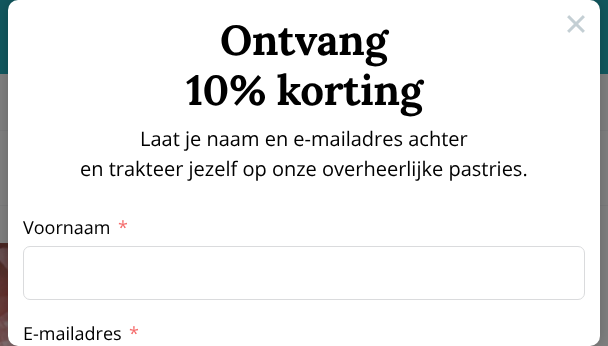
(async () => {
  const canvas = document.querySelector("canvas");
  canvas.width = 608;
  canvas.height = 346;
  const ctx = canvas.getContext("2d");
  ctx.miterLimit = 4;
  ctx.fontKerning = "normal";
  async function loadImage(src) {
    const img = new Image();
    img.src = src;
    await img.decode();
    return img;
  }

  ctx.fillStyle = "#808080";
  ctx.fillRect(0, 0, 608, 346);
  for (const [x, y, w, h, color] of [
    [0, 0, 608, 74, "#12585f"],
    [0, 130, 608, 1, "#7b7b7c"],
    [0, 205, 608, 1, "#7b7b7c"],
  ]) {
    ctx.fillStyle = color;
    ctx.fillRect(x, y, w, h);
  }
  ctx.drawImage(await loadImage("img/2.png"), 0, 243, 18, 103);
  ctx.fillStyle = "rgba(0, 0, 0, 0.2)";
  ctx.filter = "blur(7px)";
  ctx.beginPath();
  ctx.roundRect(8, 0, 592, 346, 10);
  ctx.fill();
  ctx.filter = "none";
  ctx.fillStyle = "#ffffff";
  ctx.beginPath();
  ctx.roundRect(8, 0, 592, 346, 10);
  ctx.fill();
  ctx.beginPath();
  ctx.roundRect(23.5, 246.5, 561, 53, 6.5);
  ctx.strokeStyle = "#dadbdd";
  ctx.stroke();
  ctx.drawImage(await loadImage("img/1.png"), 567, 15, 18, 18);
  ctx.letterSpacing = "-0.5px";
  ctx.font = "bold 42px Lora";
  ctx.fillStyle = "#000000";
  ctx.fillText("Ontvang", 220, 55);
  ctx.fillText("10% korting", 186, 105);
  ctx.letterSpacing = "0px";
  ctx.font = "20px Open Sans";
  ctx.fillText("Laat je naam en e-mailadres achter", 140, 146);
  ctx.fillText("en trakteer jezelf op onze overheerlijke pastries.", 80, 176);
  ctx.font = "18px Open Sans";
  ctx.fillText("Voornaam", 23, 234);
  ctx.fillStyle = "#f56c6c";
  ctx.fillText("*", 118, 234);
  ctx.fillStyle = "#000000";
  ctx.fillText("E-mailadres", 23, 340);
  ctx.fillStyle = "#f56c6c";
  ctx.fillText("*", 129, 340);
})();
